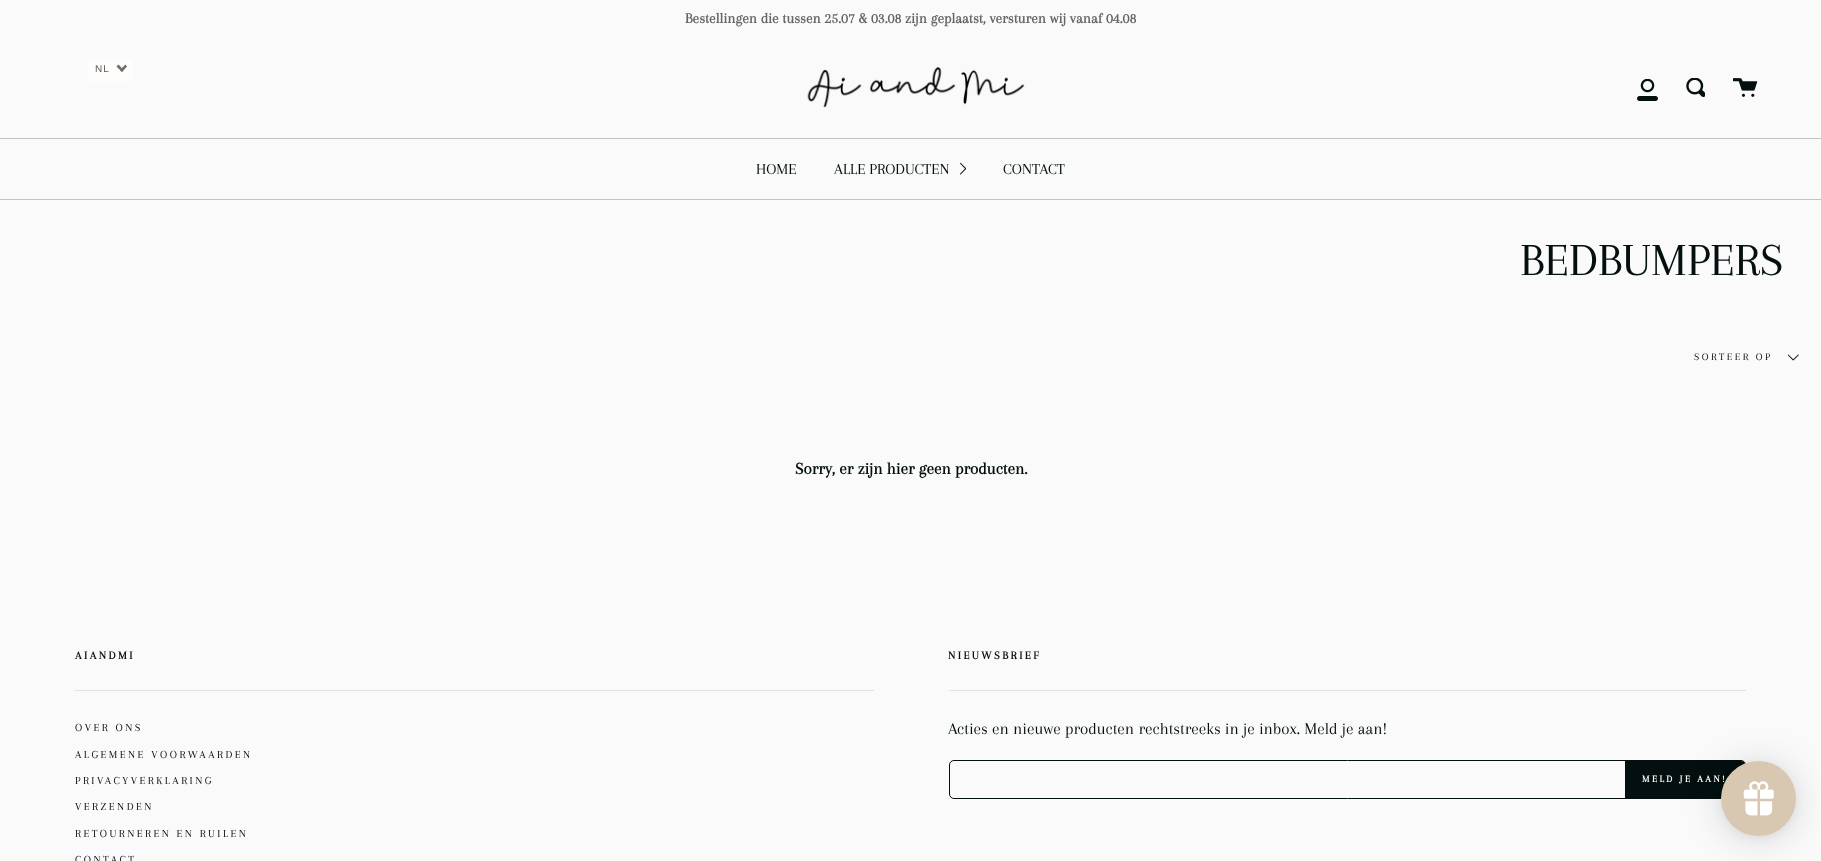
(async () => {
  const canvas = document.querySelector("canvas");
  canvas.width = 1821;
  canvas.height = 861;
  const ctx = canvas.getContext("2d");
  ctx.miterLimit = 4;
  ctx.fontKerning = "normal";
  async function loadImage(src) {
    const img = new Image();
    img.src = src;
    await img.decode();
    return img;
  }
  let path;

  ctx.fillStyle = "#fafafa";
  ctx.fillRect(0, 0, 1821, 861);
  ctx.fillStyle = "#fefdfb";
  ctx.fillRect(88, 59, 45, 22);
  ctx.fillStyle = "#6c6c6c";
  path = new Path2D("M125.5 64.5L127 66.5L122 72L120 70Z");
  ctx.fill(path);
  path = new Path2D("M118.5 64.5L123.5 70L122 72L116.5 66.5Z");
  ctx.fill(path);
  ctx.fillStyle = "#c4c3c0";
  ctx.fillRect(0, 199, 1821, 1);
  ctx.drawImage(await loadImage("img/1.png"), 807, 67, 218, 41);
  ctx.drawImage(await loadImage("img/2.png"), 1637, 79, 21, 22);
  ctx.drawImage(await loadImage("img/3.png"), 1686, 78, 19, 19);
  ctx.drawImage(await loadImage("img/4.png"), 1733, 78, 25, 19);
  ctx.fillRect(0, 138, 1821, 1);
  ctx.drawImage(await loadImage("img/5.png"), 960, 162, 6, 13);
  ctx.drawImage(await loadImage("img/6.png"), 1788, 354, 11, 7);
  ctx.fillStyle = "#e1e3e3";
  ctx.fillRect(75, 690, 799, 1);
  ctx.fillRect(949, 690, 797, 1);
  ctx.beginPath();
  ctx.roundRect(949.5, 760.5, 796, 38, 4.5);
  ctx.strokeStyle = "#040f0f";
  ctx.stroke();
  ctx.fillStyle = "#040f0f";
  ctx.beginPath();
  ctx.roundRect(1625, 761, 120, 37, [0, 4, 4, 0]);
  ctx.fill();
  ctx.fillStyle = "rgba(0, 0, 0, 0.15)";
  ctx.filter = "blur(19px)";
  ctx.beginPath();
  ctx.roundRect(1721, 764, 75, 75, 37.5);
  ctx.fill();
  ctx.filter = "none";
  ctx.fillStyle = "rgba(0, 0, 0, 0.05)";
  ctx.filter = "blur(4px)";
  ctx.beginPath();
  ctx.roundRect(1721, 763, 75, 75, 37.5);
  ctx.fill();
  ctx.filter = "none";
  ctx.letterSpacing = "1px";
  ctx.font = "10px Liberation Sans";
  ctx.fillStyle = "#5c5c5c";
  ctx.fillText("NL", 95, 72);
  ctx.letterSpacing = "0px";
  ctx.font = "bold 14.9px Arapey";
  ctx.fillStyle = "#656565";
  ctx.fillText("Bestellingen die tussen 25.07 & 03.08 zijn geplaatst, versturen wij vanaf 04.08", 685, 23);
  ctx.font = "15.75px Arapey";
  ctx.fillStyle = "#040f0f";
  for (const [text, x, y] of [
    ["HOME", 756, 174],
    ["ALLE PRODUCTEN", 834, 174],
    ["CONTACT", 1003, 174],
  ]) {
    ctx.fillText(text, x, y);
  }
  ctx.font = "47.5px Arapey";
  ctx.fillText("BEDBUMPERS", 1520, 275);
  ctx.letterSpacing = "2.5px";
  ctx.font = "10.5px Arapey";
  ctx.fillText("SORTEER OP", 1694, 360);
  ctx.letterSpacing = "0px";
  ctx.font = "bold 17px Arapey";
  ctx.fillText("Sorry, er zijn hier geen producten.", 795, 474);
  ctx.letterSpacing = "2.5px";
  ctx.font = "bold 11.5px Arapey";
  ctx.fillText("AIANDMI", 75, 659);
  ctx.font = "11.2px Arapey";
  for (const [text, x, y] of [
    ["OVER ONS", 75, 731],
    ["ALGEMENE VOORWAARDEN", 75, 758],
    ["PRIVACYVERKLARING", 75, 784],
    ["VERZENDEN", 75, 810],
    ["RETOURNEREN EN RUILEN", 75, 837],
    ["CONTACT", 75, 863],
  ]) {
    ctx.fillText(text, x, y);
  }
  ctx.font = "bold 11.5px Arapey";
  ctx.fillText("NIEUWSBRIEF", 948, 659);
  ctx.letterSpacing = "0px";
  ctx.font = "17px Arapey";
  ctx.fillText("Acties en nieuwe producten rechtstreeks in je inbox. Meld je aan!", 948, 734);
  ctx.letterSpacing = "2.5px";
  ctx.font = "bold 9.75px Arapey";
  ctx.fillStyle = "#fafafa";
  ctx.fillText("MELD JE AAN!", 1642, 782);
  ctx.fillStyle = "#d8c8b1";
  ctx.beginPath();
  ctx.arc(1758.5, 798.5, 37.5, 0, Math.PI * 2);
  ctx.fill();
  ctx.drawImage(await loadImage("img/7.png"), 1743, 781, 31, 35);
})();
